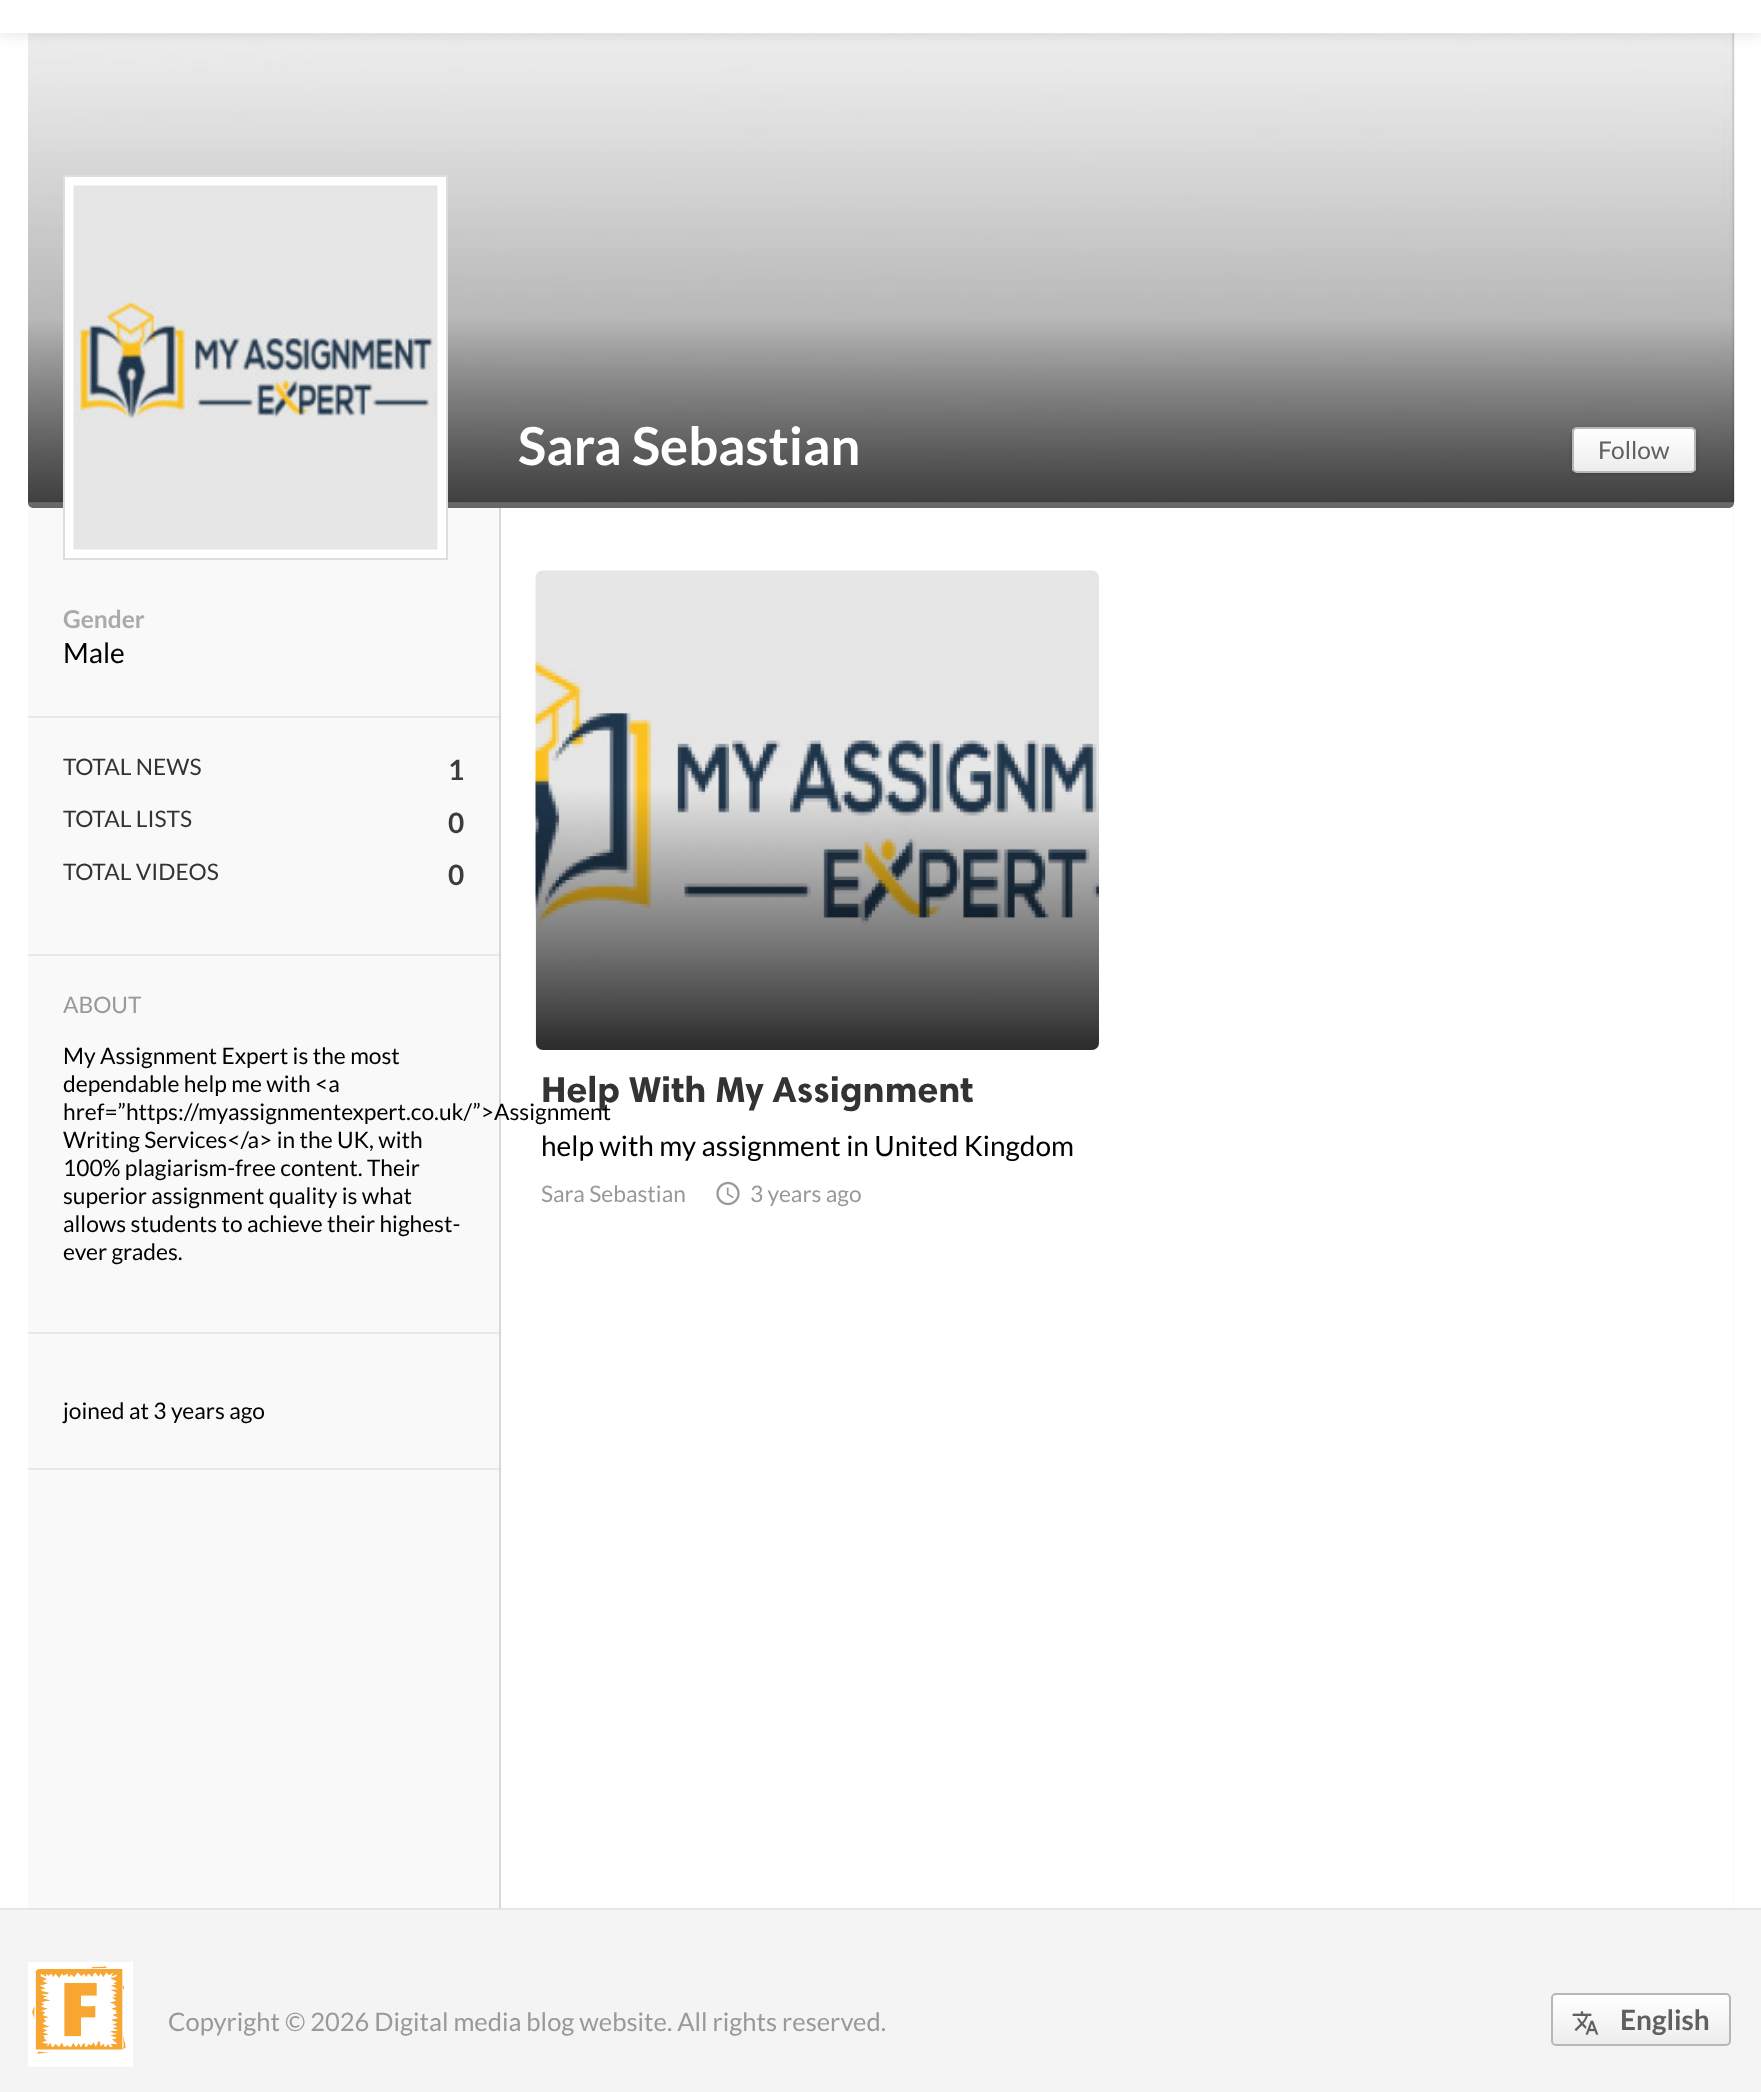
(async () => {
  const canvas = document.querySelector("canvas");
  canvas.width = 1761;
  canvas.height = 2092;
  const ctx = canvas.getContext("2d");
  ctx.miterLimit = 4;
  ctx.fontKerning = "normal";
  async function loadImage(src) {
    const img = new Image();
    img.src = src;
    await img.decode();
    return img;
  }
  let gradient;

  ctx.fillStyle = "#f4f4f4";
  ctx.fillRect(0, 0, 1761, 2092);
  ctx.fillStyle = "#ffffff";
  ctx.fillRect(0, 33, 1761, 1875);
  ctx.drawImage(await loadImage("img/1.png"), 28, 33, 1707, 470);
  gradient = ctx.createLinearGradient(881, 508, 881, 33);
  gradient.addColorStop(0, "rgba(0, 0, 0, 0.6)");
  gradient.addColorStop(0.4, "rgba(0, 0, 0, 0)");
  ctx.fillStyle = gradient;
  ctx.beginPath();
  ctx.roundRect(28, 33, 1706, 475, 5);
  ctx.fill();
  ctx.fillStyle = "rgba(0, 0, 0, 0.1)";
  ctx.filter = "blur(7px)";
  ctx.beginPath();
  ctx.rect(0, -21, 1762, 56);
  ctx.fill();
  ctx.filter = "none";
  ctx.fillStyle = "#ffffff";
  ctx.fillRect(0, 0, 1761, 33);
  ctx.fillStyle = "#f9f9f9";
  ctx.fillRect(28, 508, 1706, 1400);
  ctx.fillStyle = "#ffffff";
  ctx.beginPath();
  ctx.rect(64, 176, 383, 383);
  ctx.fill();
  ctx.strokeStyle = "#dedede";
  ctx.lineWidth = 2;
  ctx.stroke();
  ctx.drawImage(await loadImage("img/2.png"), 73, 185, 365, 365);
  ctx.fillStyle = "rgba(0, 0, 0, 0.2)";
  ctx.filter = "blur(2px)";
  ctx.beginPath();
  ctx.roundRect(1572, 429, 124, 45, 5);
  ctx.fill();
  ctx.filter = "none";
  ctx.save();
  ctx.beginPath();
  ctx.roundRect(1572, 427, 124, 46, 5);
  ctx.clip();
  gradient = ctx.createLinearGradient(1634, 429, 1634, 471);
  gradient.addColorStop(0, "#ffffff");
  gradient.addColorStop(1, "#ededed");
  ctx.fillStyle = gradient;
  ctx.fillRect(1572, 429, 124, 42);
  ctx.restore();
  ctx.beginPath();
  ctx.roundRect(1573, 428, 122, 44, 4);
  ctx.strokeStyle = "#b7b7b7";
  ctx.stroke();
  for (const [x, y, w, h, color] of [
    [28, 716, 471, 2, "#e8e8e8"],
    [28, 954, 471, 2, "#e8e8e8"],
    [28, 1332, 471, 2, "#e8e8e8"],
    [28, 1468, 471, 2, "#e8e8e8"],
    [501, 508, 1232, 1400, "#ffffff"],
    [499, 508, 2, 1400, "#d8d8d8"],
  ]) {
    ctx.fillStyle = color;
    ctx.fillRect(x, y, w, h);
  }
  ctx.drawImage(await loadImage("img/3.png"), 535, 570, 564, 480);
  gradient = ctx.createLinearGradient(817, 571, 817, 1050);
  gradient.addColorStop(0.45, "rgba(0, 0, 0, 0)");
  gradient.addColorStop(0.99, "rgba(0, 0, 0, 0.8)");
  gradient.addColorStop(1, "rgba(0, 0, 0, 0.8)");
  ctx.fillStyle = gradient;
  ctx.beginPath();
  ctx.roundRect(536, 571, 563, 479, 7);
  ctx.fill();
  ctx.drawImage(await loadImage("img/4.png"), 716, 1181, 24, 25);
  ctx.fillStyle = "#e6e6e6";
  ctx.fillRect(0, 1908, 1761, 2);
  ctx.drawImage(await loadImage("img/5.png"), 28, 1962, 105, 105);
  ctx.save();
  ctx.beginPath();
  ctx.roundRect(1551, 1993, 180, 53, 5);
  ctx.clip();
  gradient = ctx.createLinearGradient(1641, 1995, 1641, 2044);
  gradient.addColorStop(0, "#ffffff");
  gradient.addColorStop(1, "#ededed");
  ctx.fillStyle = gradient;
  ctx.fillRect(1551, 1995, 180, 49);
  ctx.restore();
  ctx.beginPath();
  ctx.roundRect(1552, 1994, 178, 51, 4);
  ctx.stroke();
  ctx.drawImage(await loadImage("img/6.png"), 1572, 2011, 27, 24);
  ctx.font = "bold 52.5px Lato";
  ctx.fillStyle = "#ffffff";
  ctx.fillText("Sara Sebastian", 518, 465);
  ctx.font = "24.5px Lato";
  ctx.fillStyle = "#606060";
  ctx.fillText("Follow", 1598, 459);
  ctx.font = "bold 24.5px Lato";
  ctx.fillStyle = "#aaaaaa";
  ctx.fillText("Gender", 63, 628);
  ctx.font = "28px Lato";
  ctx.fillStyle = "#000000";
  ctx.fillText("Male", 63, 663);
  ctx.font = "22.75px Lato";
  ctx.fillStyle = "#333333";
  ctx.fillText("TOTAL NEWS", 63, 775);
  ctx.font = "bold 28px Lato";
  ctx.fillStyle = "#3c3c3c";
  ctx.fillText("1", 448, 780);
  ctx.font = "22.75px Lato";
  ctx.fillStyle = "#333333";
  ctx.fillText("TOTAL LISTS", 63, 827);
  ctx.font = "bold 28px Lato";
  ctx.fillStyle = "#3c3c3c";
  ctx.fillText("0", 448, 833);
  ctx.font = "22.75px Lato";
  ctx.fillStyle = "#333333";
  ctx.fillText("TOTAL VIDEOS", 63, 880);
  ctx.font = "bold 28px Lato";
  ctx.fillStyle = "#3c3c3c";
  ctx.fillText("0", 448, 885);
  ctx.font = "22.75px Lato";
  ctx.fillStyle = "#999999";
  ctx.fillText("ABOUT", 63, 1013);
  ctx.fillStyle = "#000000";
  for (const [text, x, y] of [
    ["My Assignment Expert is the most", 63, 1064],
    ["dependable help me with <a", 63, 1092],
    ["Writing Services<\/a> in the UK, with", 63, 1148],
    ["100% plagiarism-free content. Their", 63, 1176],
    ["superior assignment quality is what", 63, 1204],
    ["allows students to achieve their highest-", 63, 1232],
    ["ever grades.", 63, 1260],
    ["joined at 3 years ago", 63, 1419],
  ]) {
    ctx.fillText(text, x, y);
  }
  ctx.font = "bold 36.4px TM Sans";
  ctx.fillStyle = "#333333";
  ctx.fillText("Help With My Assignment", 541, 1102);
  ctx.font = "22.75px Lato";
  ctx.fillStyle = "#000000";
  ctx.fillText("href=”https://myassignmentexpert.co.uk/”>Assignment", 63, 1120);
  ctx.font = "28px Lato";
  ctx.fillText("help with my assignment in United Kingdom", 541, 1156);
  ctx.font = "22.75px Lato";
  ctx.fillStyle = "#999999";
  ctx.fillText("Sara Sebastian", 541, 1202);
  ctx.fillText("3 years ago", 750, 1202);
  ctx.font = "25.5px Lato";
  ctx.fillText("Copyright © 2026 Digital media blog website. All rights reserved.", 168, 2031);
  ctx.font = "bold 28px Lato";
  ctx.fillStyle = "#606060";
  ctx.fillText("English", 1620, 2030);
})();
